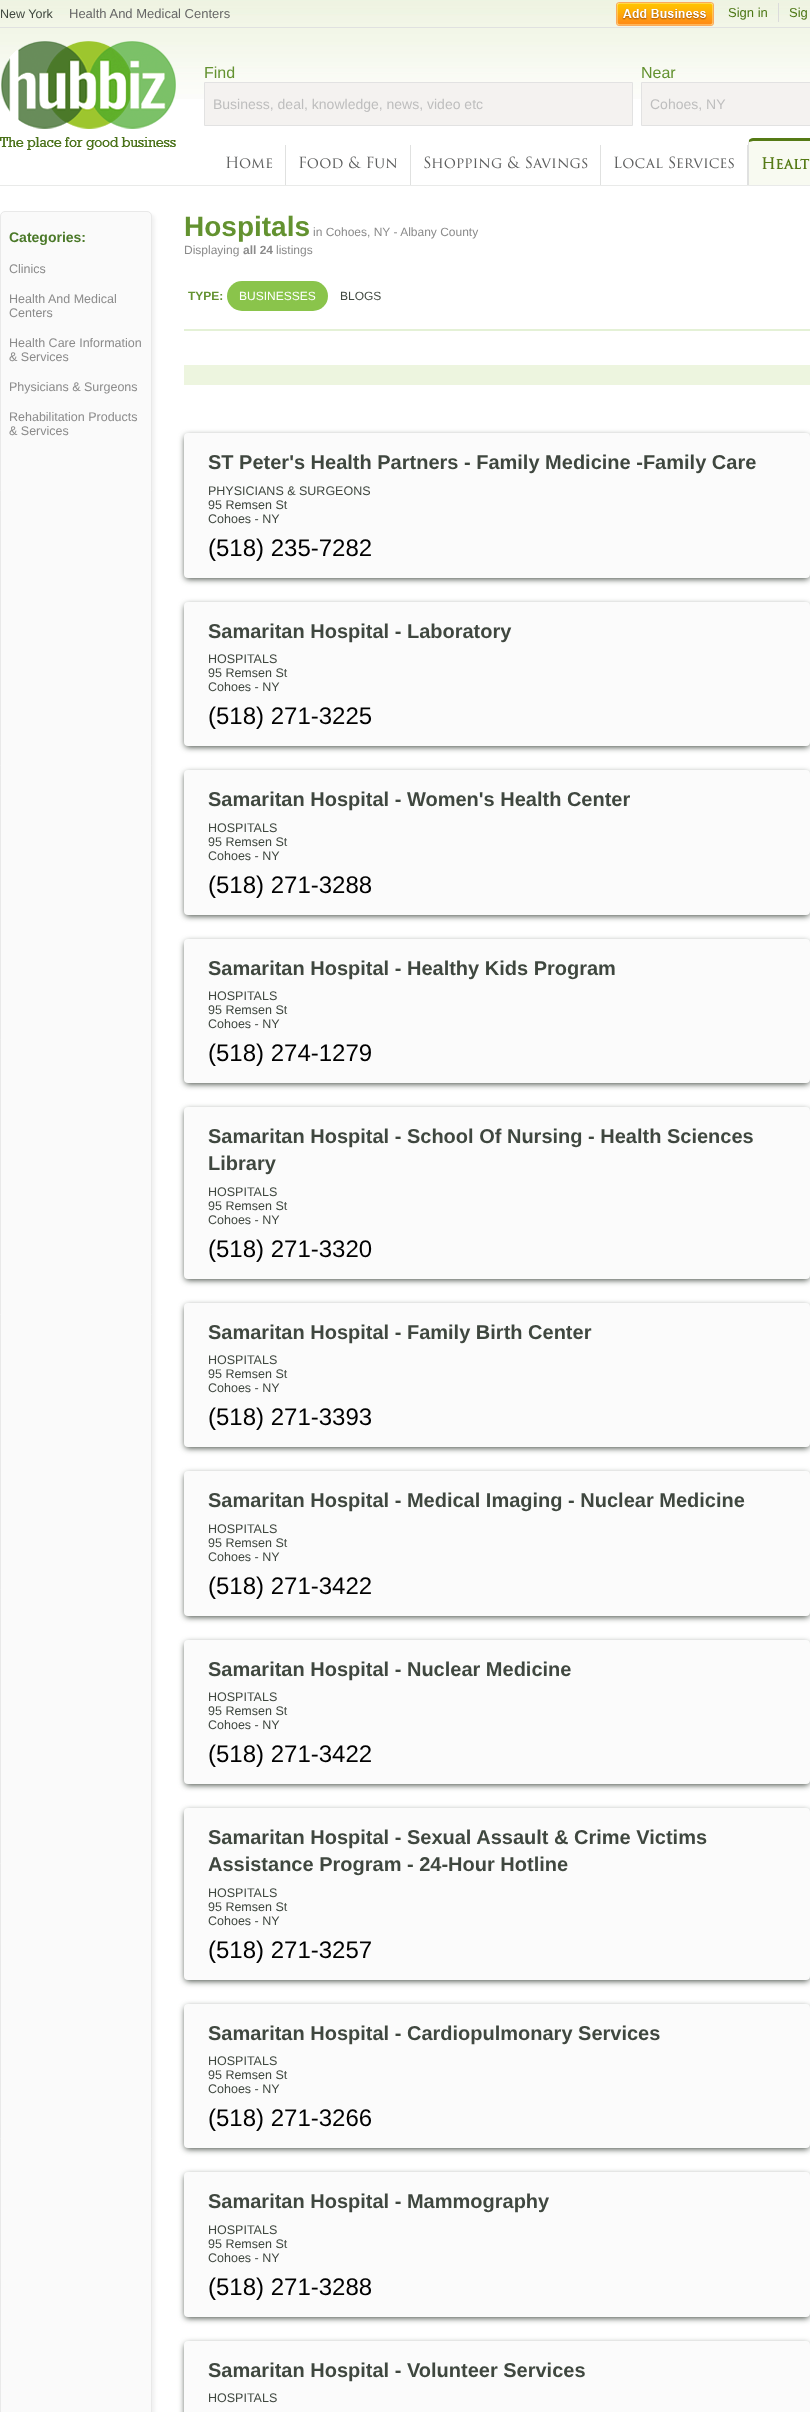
(async () => {
  const canvas = document.querySelector("canvas");
  canvas.width = 810;
  canvas.height = 2412;
  const ctx = canvas.getContext("2d");
  ctx.miterLimit = 4;
  ctx.fontKerning = "normal";
  async function loadImage(src) {
    const img = new Image();
    img.src = src;
    await img.decode();
    return img;
  }
  let path;

  ctx.fillStyle = "#ffffff";
  ctx.fillRect(0, 0, 810, 2412);
  ctx.drawImage(await loadImage("img/1.png"), 0, 0, 810, 99);
  ctx.fillStyle = "#e9eae9";
  ctx.fillRect(0, 185, 810, 1);
  ctx.fillStyle = "#e0e1e0";
  ctx.fillRect(0, 27, 810, 1);
  ctx.drawImage(await loadImage("img/2.png"), 616, 2, 98, 24);
  ctx.fillStyle = "#dbdbdb";
  ctx.fillRect(778, 3, 1, 19);
  ctx.drawImage(await loadImage("img/3.png"), 0, 41, 176, 109);
  ctx.fillStyle = "#f4f2f0";
  ctx.beginPath();
  ctx.rect(204.5, 82.5, 428, 43);
  ctx.fill();
  ctx.strokeStyle = "#e2e2e2";
  ctx.stroke();
  ctx.beginPath();
  ctx.rect(641.5, 82.5, 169, 43);
  ctx.fill();
  ctx.stroke();
  for (const [x, y, w, h, color] of [
    [285, 145, 1, 40, "#e0e1e0"],
    [410, 145, 1, 40, "#e0e1e0"],
    [600, 145, 1, 40, "#e0e1e0"],
    [747, 145, 1, 40, "#e0e1e0"],
  ]) {
    ctx.fillStyle = color;
    ctx.fillRect(x, y, w, h);
  }
  ctx.fillStyle = "#f8faf1";
  path = new Path2D("M753 138H810C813 138 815 140 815 143V185H748V143C748 140 750 138 753 138Z");
  ctx.fill(path);
  ctx.fillStyle = "#557a15";
  path = new Path2D("M753 138C751 138 750 139 749 140V142C750 142 752 141 753 141H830C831 141 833 142 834 142V140C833 139 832 138 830 138Z");
  ctx.fill(path);
  ctx.fillStyle = "#e0e1e0";
  path = new Path2D("M748 185H749C749 180 749 143 749 142V140L748 143Z");
  ctx.fill(path);
  ctx.fillStyle = "rgba(0, 0, 0, 0.05)";
  ctx.filter = "blur(1.5px)";
  ctx.beginPath();
  ctx.roundRect(3, 214, 152, 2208, 5);
  ctx.fill();
  ctx.filter = "none";
  ctx.fillStyle = "#fafafa";
  ctx.beginPath();
  ctx.roundRect(0.5, 211.5, 151, 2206, 4.5);
  ctx.fill();
  ctx.strokeStyle = "#e9e9e9";
  ctx.stroke();
  ctx.fillStyle = "#e4f1d6";
  ctx.fillRect(184, 329, 626, 2);
  ctx.fillStyle = "#8ac44b";
  ctx.beginPath();
  ctx.roundRect(227, 281, 101, 30, 15);
  ctx.fill();
  ctx.fillStyle = "#edf5df";
  ctx.fillRect(184, 365, 626, 20);
  ctx.fillStyle = "#3f473f";
  ctx.filter = "blur(3px)";
  ctx.beginPath();
  ctx.roundRect(185, 436, 624, 143, 3);
  ctx.fill();
  ctx.filter = "none";
  ctx.fillStyle = "#fbfbfb";
  ctx.beginPath();
  ctx.roundRect(184, 433, 626, 145, 4);
  ctx.fill();
  ctx.fillStyle = "#3f473f";
  ctx.filter = "blur(3px)";
  ctx.beginPath();
  ctx.roundRect(185, 605, 624, 142, 3);
  ctx.fill();
  ctx.filter = "none";
  ctx.fillStyle = "#fbfbfb";
  ctx.beginPath();
  ctx.roundRect(184, 602, 626, 144, 4);
  ctx.fill();
  ctx.fillStyle = "#3f473f";
  ctx.filter = "blur(3px)";
  ctx.beginPath();
  ctx.roundRect(185, 773, 624, 143, 3);
  ctx.fill();
  ctx.filter = "none";
  ctx.fillStyle = "#fbfbfb";
  ctx.beginPath();
  ctx.roundRect(184, 770, 626, 145, 4);
  ctx.fill();
  ctx.fillStyle = "#3f473f";
  ctx.filter = "blur(3px)";
  ctx.beginPath();
  ctx.roundRect(185, 942, 624, 142, 3);
  ctx.fill();
  ctx.filter = "none";
  ctx.fillStyle = "#fbfbfb";
  ctx.beginPath();
  ctx.roundRect(184, 939, 626, 144, 4);
  ctx.fill();
  ctx.fillStyle = "#3f473f";
  ctx.filter = "blur(3px)";
  ctx.beginPath();
  ctx.roundRect(185, 1110, 624, 170, 3);
  ctx.fill();
  ctx.filter = "none";
  ctx.fillStyle = "#fbfbfb";
  ctx.beginPath();
  ctx.roundRect(184, 1107, 626, 172, 4);
  ctx.fill();
  ctx.fillStyle = "#3f473f";
  ctx.filter = "blur(3px)";
  ctx.beginPath();
  ctx.roundRect(185, 1306, 624, 142, 3);
  ctx.fill();
  ctx.filter = "none";
  ctx.fillStyle = "#fbfbfb";
  ctx.beginPath();
  ctx.roundRect(184, 1303, 626, 144, 4);
  ctx.fill();
  ctx.fillStyle = "#3f473f";
  ctx.filter = "blur(3px)";
  ctx.beginPath();
  ctx.roundRect(185, 1474, 624, 143, 3);
  ctx.fill();
  ctx.filter = "none";
  ctx.fillStyle = "#fbfbfb";
  ctx.beginPath();
  ctx.roundRect(184, 1471, 626, 145, 4);
  ctx.fill();
  ctx.fillStyle = "#3f473f";
  ctx.filter = "blur(3px)";
  ctx.beginPath();
  ctx.roundRect(185, 1643, 624, 142, 3);
  ctx.fill();
  ctx.filter = "none";
  ctx.fillStyle = "#fbfbfb";
  ctx.beginPath();
  ctx.roundRect(184, 1640, 626, 144, 4);
  ctx.fill();
  ctx.fillStyle = "#3f473f";
  ctx.filter = "blur(3px)";
  ctx.beginPath();
  ctx.roundRect(185, 1811, 624, 170, 3);
  ctx.fill();
  ctx.filter = "none";
  ctx.fillStyle = "#fbfbfb";
  ctx.beginPath();
  ctx.roundRect(184, 1808, 626, 172, 4);
  ctx.fill();
  ctx.fillStyle = "#3f473f";
  ctx.filter = "blur(3px)";
  ctx.beginPath();
  ctx.roundRect(185, 2007, 624, 142, 3);
  ctx.fill();
  ctx.filter = "none";
  ctx.fillStyle = "#fbfbfb";
  ctx.beginPath();
  ctx.roundRect(184, 2004, 626, 144, 4);
  ctx.fill();
  ctx.fillStyle = "#3f473f";
  ctx.filter = "blur(3px)";
  ctx.beginPath();
  ctx.roundRect(185, 2175, 624, 143, 3);
  ctx.fill();
  ctx.filter = "none";
  ctx.fillStyle = "#fbfbfb";
  ctx.beginPath();
  ctx.roundRect(184, 2172, 626, 145, 4);
  ctx.fill();
  ctx.fillStyle = "#3f473f";
  ctx.filter = "blur(3px)";
  ctx.beginPath();
  ctx.roundRect(185, 2344, 624, 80, 3);
  ctx.fill();
  ctx.filter = "none";
  ctx.fillStyle = "#fbfbfb";
  ctx.beginPath();
  ctx.roundRect(184, 2341, 626, 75, 4);
  ctx.fill();
  ctx.font = "12.5px Liberation Sans";
  ctx.fillStyle = "#3f473f";
  ctx.fillText("New York", 0, 18);
  ctx.font = "13px Liberation Sans";
  ctx.fillStyle = "#676767";
  ctx.fillText("Health And Medical Centers", 69, 18);
  ctx.fillStyle = "#4d7715";
  ctx.fillText("Sign in", 728, 17);
  ctx.fillText("Sig", 789, 17);
  ctx.font = "16px Liberation Sans";
  ctx.fillStyle = "#639230";
  ctx.fillText("Find", 204, 78);
  ctx.font = "14px Liberation Sans";
  ctx.fillStyle = "#bebebe";
  ctx.fillText("Business, deal, knowledge, news, video etc", 213, 109);
  ctx.font = "16px Liberation Sans";
  ctx.fillStyle = "#639230";
  ctx.fillText("Near", 641, 78);
  ctx.font = "14px Liberation Sans";
  ctx.fillStyle = "#bebebe";
  ctx.fillText("Cohoes, NY", 650, 109);
  ctx.font = "15px 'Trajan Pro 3'";
  ctx.fillStyle = "#5d5e5e";
  for (const [text, x, y] of [
    ["Home", 225, 168],
    ["Food & Fun", 298, 168],
    ["Shopping & Savings", 423, 168],
    ["Local Services", 613, 168],
  ]) {
    ctx.fillText(text, x, y);
  }
  ctx.font = "bold 15px 'Trajan Pro 3'";
  ctx.fillStyle = "#557a15";
  ctx.fillText("Healt", 761, 169);
  ctx.font = "bold 14px Liberation Sans";
  ctx.fillStyle = "#4b7929";
  ctx.fillText("Categories:", 9, 242);
  ctx.font = "12.5px Liberation Sans";
  ctx.fillStyle = "#8b8b8b";
  for (const [text, x, y] of [
    ["Clinics", 9, 273],
    ["Health And Medical", 9, 303],
    ["Centers", 9, 317],
    ["Health Care Information", 9, 347],
    ["& Services", 9, 361],
    ["Physicians & Surgeons", 9, 391],
    ["Rehabilitation Products", 9, 421],
    ["& Services", 9, 435],
  ]) {
    ctx.fillText(text, x, y);
  }
  ctx.font = "bold 28px Liberation Sans";
  ctx.fillStyle = "#639230";
  ctx.fillText("Hospitals", 184, 236);
  ctx.font = "12px Liberation Sans";
  ctx.fillStyle = "#8b8b8b";
  ctx.fillText("in Cohoes, NY - Albany County", 313, 236);
  ctx.fillText("Displaying", 184, 254);
  ctx.font = "bold 12px Liberation Sans";
  ctx.fillText("all 24", 243, 254);
  ctx.font = "12px Liberation Sans";
  ctx.fillText("listings", 276, 254);
  ctx.font = "bold 12px Liberation Sans";
  ctx.fillStyle = "#639230";
  ctx.fillText("TYPE:", 188, 300);
  ctx.font = "12px Liberation Sans";
  ctx.fillStyle = "#ffffff";
  ctx.fillText("BUSINESSES", 239, 300);
  ctx.fillStyle = "#3f473f";
  ctx.fillText("BLOGS", 340, 300);
  ctx.font = "bold 20px Liberation Sans";
  ctx.fillText("ST Peter's Health Partners - Family Medicine -Family Care", 208, 469);
  ctx.font = "12.5px Liberation Sans";
  for (const [text, x, y] of [
    ["PHYSICIANS & SURGEONS", 208, 495],
    ["95 Remsen St", 208, 509],
    ["Cohoes - NY", 208, 523],
  ]) {
    ctx.fillText(text, x, y);
  }
  ctx.font = "24px Liberation Sans";
  ctx.fillStyle = "#000000";
  ctx.fillText("(518) 235-7282", 208, 556);
  ctx.font = "bold 20px Liberation Sans";
  ctx.fillStyle = "#3f473f";
  ctx.fillText("Samaritan Hospital - Laboratory", 208, 638);
  ctx.font = "12.5px Liberation Sans";
  for (const [text, x, y] of [
    ["HOSPITALS", 208, 663],
    ["95 Remsen St", 208, 677],
    ["Cohoes - NY", 208, 691],
  ]) {
    ctx.fillText(text, x, y);
  }
  ctx.font = "24px Liberation Sans";
  ctx.fillStyle = "#000000";
  ctx.fillText("(518) 271-3225", 208, 724);
  ctx.font = "bold 20px Liberation Sans";
  ctx.fillStyle = "#3f473f";
  ctx.fillText("Samaritan Hospital - Women's Health Center", 208, 806);
  ctx.font = "12.5px Liberation Sans";
  for (const [text, x, y] of [
    ["HOSPITALS", 208, 832],
    ["95 Remsen St", 208, 846],
    ["Cohoes - NY", 208, 860],
  ]) {
    ctx.fillText(text, x, y);
  }
  ctx.font = "24px Liberation Sans";
  ctx.fillStyle = "#000000";
  ctx.fillText("(518) 271-3288", 208, 893);
  ctx.font = "bold 20px Liberation Sans";
  ctx.fillStyle = "#3f473f";
  ctx.fillText("Samaritan Hospital - Healthy Kids Program", 208, 975);
  ctx.font = "12.5px Liberation Sans";
  for (const [text, x, y] of [
    ["HOSPITALS", 208, 1000],
    ["95 Remsen St", 208, 1014],
    ["Cohoes - NY", 208, 1028],
  ]) {
    ctx.fillText(text, x, y);
  }
  ctx.font = "24px Liberation Sans";
  ctx.fillStyle = "#000000";
  ctx.fillText("(518) 274-1279", 208, 1061);
  ctx.font = "bold 20px Liberation Sans";
  ctx.fillStyle = "#3f473f";
  ctx.fillText("Samaritan Hospital - School Of Nursing - Health Sciences", 208, 1143);
  ctx.fillText("Library", 208, 1170);
  ctx.font = "12.5px Liberation Sans";
  for (const [text, x, y] of [
    ["HOSPITALS", 208, 1196],
    ["95 Remsen St", 208, 1210],
    ["Cohoes - NY", 208, 1224],
  ]) {
    ctx.fillText(text, x, y);
  }
  ctx.font = "24px Liberation Sans";
  ctx.fillStyle = "#000000";
  ctx.fillText("(518) 271-3320", 208, 1257);
  ctx.font = "bold 20px Liberation Sans";
  ctx.fillStyle = "#3f473f";
  ctx.fillText("Samaritan Hospital - Family Birth Center", 208, 1339);
  ctx.font = "12.5px Liberation Sans";
  for (const [text, x, y] of [
    ["HOSPITALS", 208, 1364],
    ["95 Remsen St", 208, 1378],
    ["Cohoes - NY", 208, 1392],
  ]) {
    ctx.fillText(text, x, y);
  }
  ctx.font = "24px Liberation Sans";
  ctx.fillStyle = "#000000";
  ctx.fillText("(518) 271-3393", 208, 1425);
  ctx.font = "bold 20px Liberation Sans";
  ctx.fillStyle = "#3f473f";
  ctx.fillText("Samaritan Hospital - Medical Imaging - Nuclear Medicine", 208, 1507);
  ctx.font = "12.5px Liberation Sans";
  for (const [text, x, y] of [
    ["HOSPITALS", 208, 1533],
    ["95 Remsen St", 208, 1547],
    ["Cohoes - NY", 208, 1561],
  ]) {
    ctx.fillText(text, x, y);
  }
  ctx.font = "24px Liberation Sans";
  ctx.fillStyle = "#000000";
  ctx.fillText("(518) 271-3422", 208, 1594);
  ctx.font = "bold 20px Liberation Sans";
  ctx.fillStyle = "#3f473f";
  ctx.fillText("Samaritan Hospital - Nuclear Medicine", 208, 1676);
  ctx.font = "12.5px Liberation Sans";
  for (const [text, x, y] of [
    ["HOSPITALS", 208, 1701],
    ["95 Remsen St", 208, 1715],
    ["Cohoes - NY", 208, 1729],
  ]) {
    ctx.fillText(text, x, y);
  }
  ctx.font = "24px Liberation Sans";
  ctx.fillStyle = "#000000";
  ctx.fillText("(518) 271-3422", 208, 1762);
  ctx.font = "bold 20px Liberation Sans";
  ctx.fillStyle = "#3f473f";
  ctx.fillText("Samaritan Hospital - Sexual Assault & Crime Victims", 208, 1844);
  ctx.fillText("Assistance Program - 24-Hour Hotline", 208, 1871);
  ctx.font = "12.5px Liberation Sans";
  for (const [text, x, y] of [
    ["HOSPITALS", 208, 1897],
    ["95 Remsen St", 208, 1911],
    ["Cohoes - NY", 208, 1925],
  ]) {
    ctx.fillText(text, x, y);
  }
  ctx.font = "24px Liberation Sans";
  ctx.fillStyle = "#000000";
  ctx.fillText("(518) 271-3257", 208, 1958);
  ctx.font = "bold 20px Liberation Sans";
  ctx.fillStyle = "#3f473f";
  ctx.fillText("Samaritan Hospital - Cardiopulmonary Services", 208, 2040);
  ctx.font = "12.5px Liberation Sans";
  for (const [text, x, y] of [
    ["HOSPITALS", 208, 2065],
    ["95 Remsen St", 208, 2079],
    ["Cohoes - NY", 208, 2093],
  ]) {
    ctx.fillText(text, x, y);
  }
  ctx.font = "24px Liberation Sans";
  ctx.fillStyle = "#000000";
  ctx.fillText("(518) 271-3266", 208, 2126);
  ctx.font = "bold 20px Liberation Sans";
  ctx.fillStyle = "#3f473f";
  ctx.fillText("Samaritan Hospital - Mammography", 208, 2208);
  ctx.font = "12.5px Liberation Sans";
  for (const [text, x, y] of [
    ["HOSPITALS", 208, 2234],
    ["95 Remsen St", 208, 2248],
    ["Cohoes - NY", 208, 2262],
  ]) {
    ctx.fillText(text, x, y);
  }
  ctx.font = "24px Liberation Sans";
  ctx.fillStyle = "#000000";
  ctx.fillText("(518) 271-3288", 208, 2295);
  ctx.font = "bold 20px Liberation Sans";
  ctx.fillStyle = "#3f473f";
  ctx.fillText("Samaritan Hospital - Volunteer Services", 208, 2377);
  ctx.font = "12.5px Liberation Sans";
  ctx.fillText("HOSPITALS", 208, 2402);
})();
